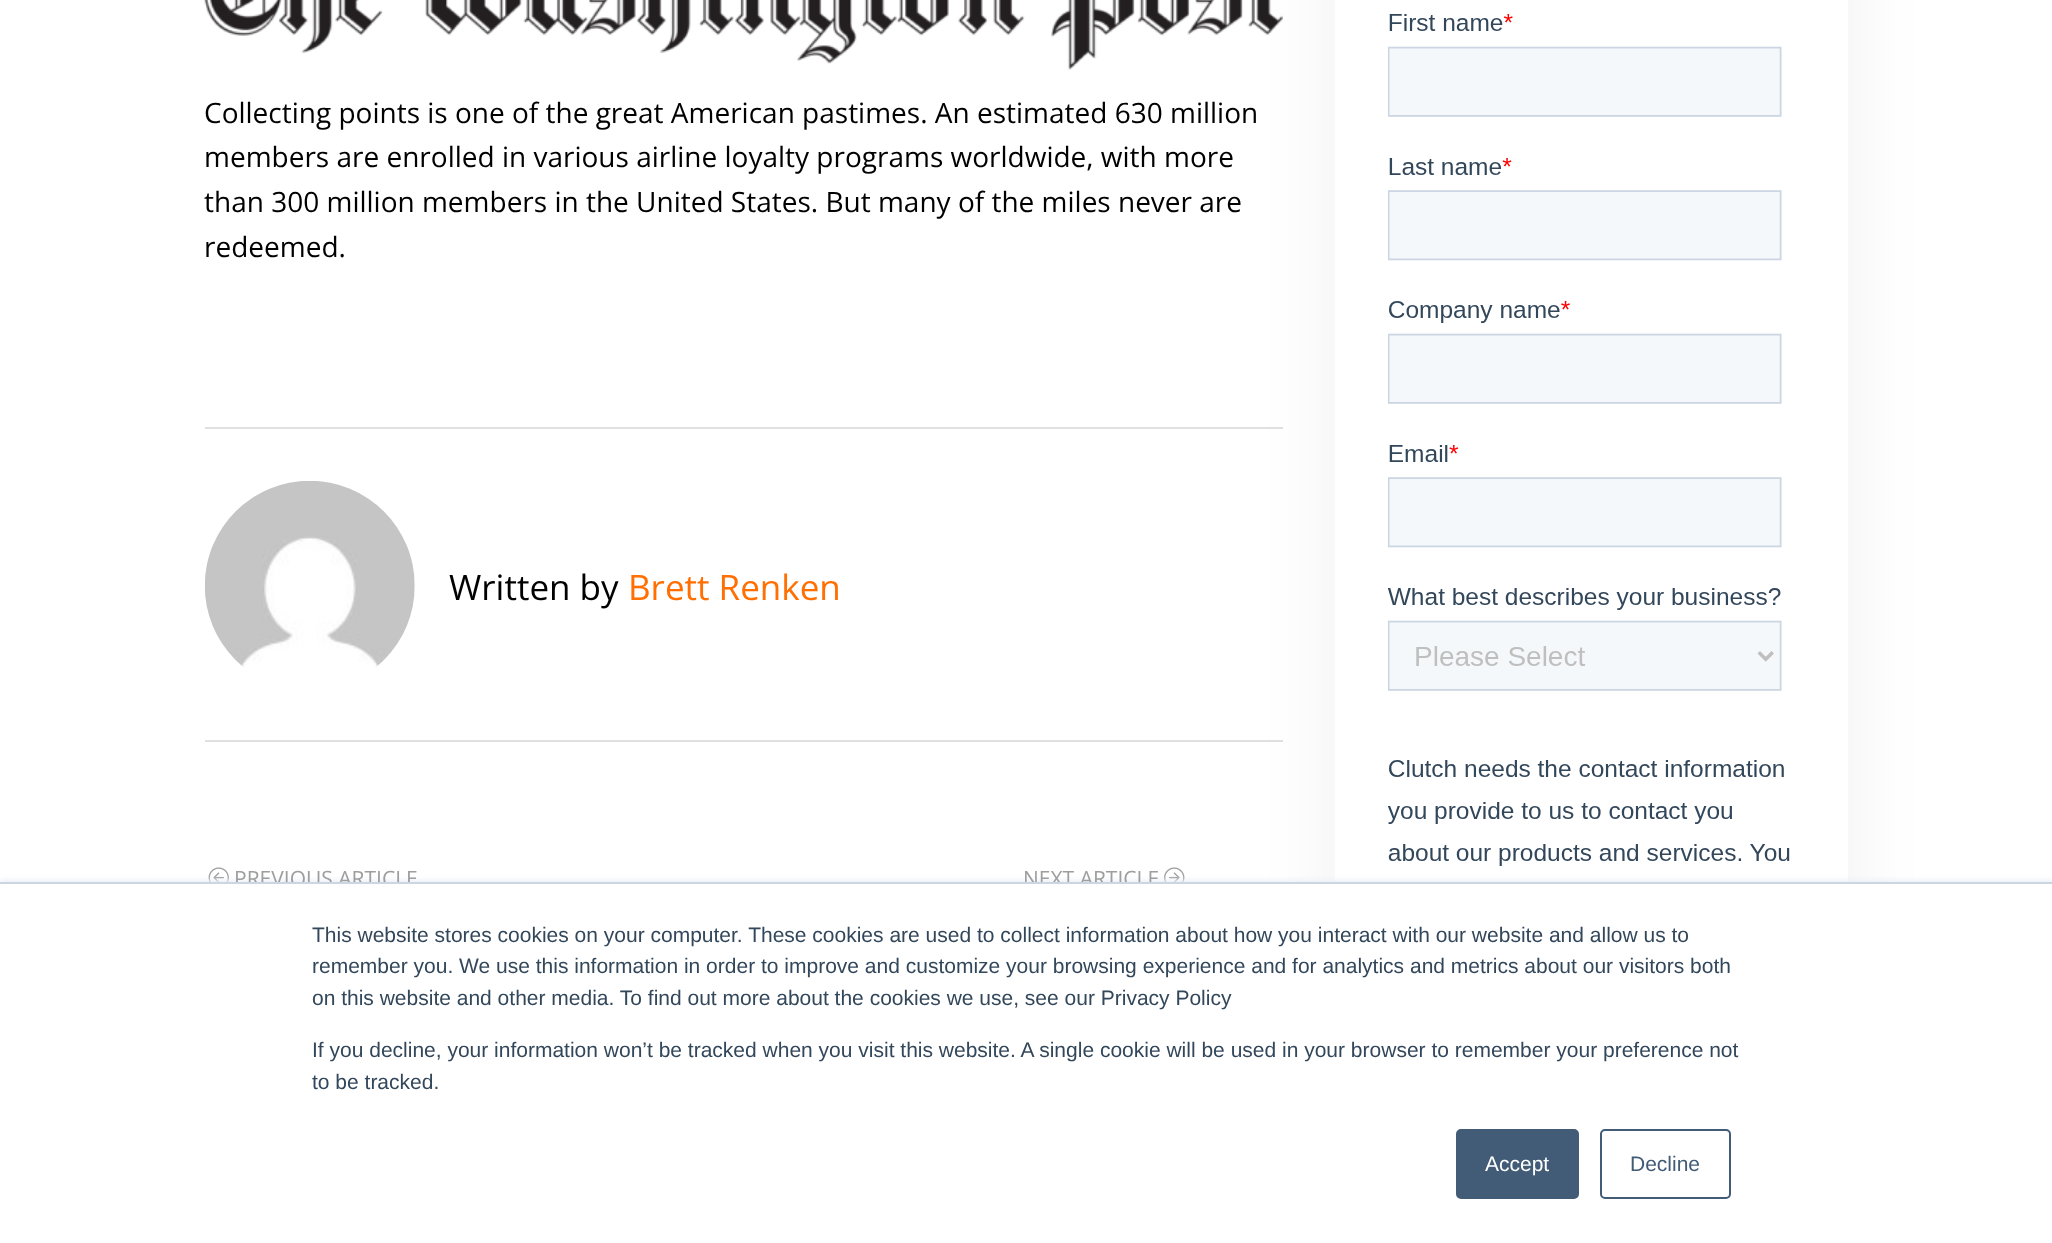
(async () => {
  const canvas = document.querySelector("canvas");
  canvas.width = 2052;
  canvas.height = 1243;
  const ctx = canvas.getContext("2d");
  ctx.miterLimit = 4;
  ctx.fontKerning = "normal";
  async function loadImage(src) {
    const img = new Image();
    img.src = src;
    await img.decode();
    return img;
  }

  ctx.fillStyle = "#ffffff";
  ctx.fillRect(0, 0, 2052, 1243);
  ctx.drawImage(await loadImage("img/1.png"), 204, 0, 1079, 70);
  ctx.fillStyle = "#e0e0e0";
  ctx.fillRect(205, 427, 1078, 2);
  ctx.fillRect(205, 740, 1078, 2);
  ctx.drawImage(await loadImage("img/2.png"), 205, 481, 210, 186);
  ctx.drawImage(await loadImage("img/3.png"), 208, 867, 21, 15);
  ctx.drawImage(await loadImage("img/4.png"), 1164, 867, 21, 15);
  ctx.fillStyle = "rgba(0, 0, 0, 0.06)";
  ctx.filter = "blur(38.5px)";
  ctx.beginPath();
  ctx.rect(1335, -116, 513, 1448);
  ctx.fill();
  ctx.filter = "none";
  ctx.fillStyle = "#ffffff";
  ctx.fillRect(1335, 0, 513, 882);
  ctx.drawImage(await loadImage("img/5.png"), 1387, 14, 403, 852);
  ctx.fillStyle = "#eaf0f6";
  ctx.filter = "blur(2.5px)";
  ctx.beginPath();
  ctx.rect(0, 880, 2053, 363);
  ctx.fill();
  ctx.filter = "none";
  ctx.font = "28px Open Sans";
  ctx.fillStyle = "#000000";
  for (const [text, x, y] of [
    ["Collecting points is one of the great American pastimes. An estimated 630 million", 204, 123],
    ["members are enrolled in various airline loyalty programs worldwide, with more", 204, 167],
    ["than 300 million members in the United States. But many of the miles never are", 204, 212],
    ["redeemed.", 204, 257],
  ]) {
    ctx.fillText(text, x, y);
  }
  ctx.font = "35px Open Sans";
  ctx.fillText("Written by", 449, 600);
  ctx.fillStyle = "#ff6f02";
  ctx.fillText("Brett Renken", 628, 600);
  ctx.font = "21px Open Sans";
  ctx.fillStyle = "#9e9e9e";
  ctx.fillText("PREVIOUS ARTICLE", 234, 886);
  ctx.fillText("NEXT ARTICLE", 1023, 886);
  ctx.fillStyle = "#ffffff";
  ctx.fillRect(0, 884, 2052, 359);
  ctx.fillStyle = "#cbd6e2";
  ctx.fillRect(0, 882, 2052, 2);
  ctx.font = "21px Liberation Sans";
  ctx.fillStyle = "#33475b";
  for (const [text, x, y] of [
    ["This website stores cookies on your computer. These cookies are used to collect information about how you interact with our website and allow us to", 312, 942],
    ["remember you. We use this information in order to improve and customize your browsing experience and for analytics and metrics about our visitors both", 312, 973],
    ["on this website and other media. To find out more about the cookies we use, see our Privacy Policy", 312, 1005],
    ["If you decline, your information won’t be tracked when you visit this website. A single cookie will be used in your browser to remember your preference not", 312, 1057],
    ["to be tracked.", 312, 1089],
  ]) {
    ctx.fillText(text, x, y);
  }
  ctx.fillStyle = "#425b76";
  ctx.beginPath();
  ctx.roundRect(1457, 1130, 121, 68, 4);
  ctx.fill();
  ctx.strokeStyle = "#425b76";
  ctx.lineWidth = 2;
  ctx.stroke();
  ctx.fillStyle = "#ffffff";
  ctx.fillText("Accept", 1485, 1171);
  ctx.beginPath();
  ctx.roundRect(1601, 1130, 129, 68, 4);
  ctx.stroke();
  ctx.fillStyle = "#425b76";
  ctx.fillText("Decline", 1630, 1171);
})();
